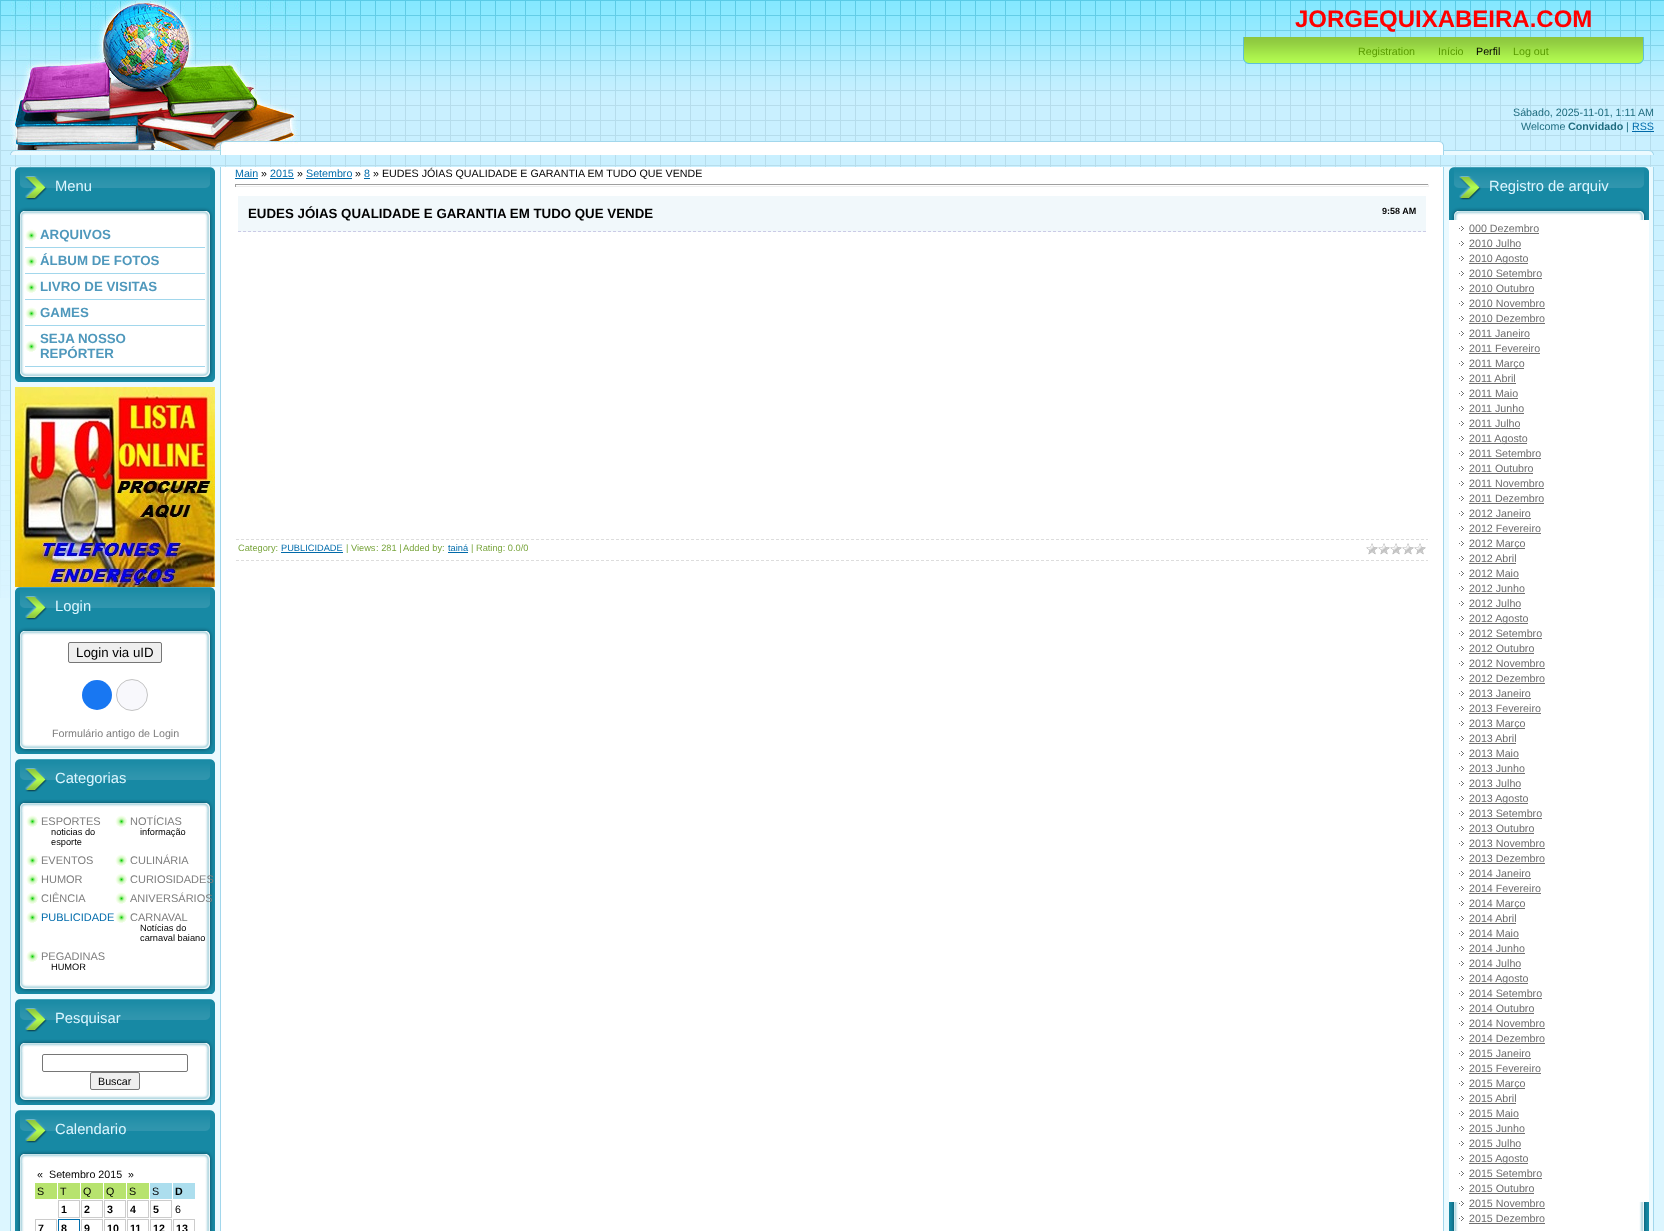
(async () => {
  const canvas = document.querySelector("canvas");
  canvas.width = 1664;
  canvas.height = 1231;
  const ctx = canvas.getContext("2d");
  ctx.miterLimit = 4;
  ctx.fontKerning = "normal";
  async function loadImage(src) {
    const img = new Image();
    img.src = src;
    await img.decode();
    return img;
  }
  let path;

  ctx.fillStyle = "#dcf6ff";
  ctx.fillRect(0, 0, 1664, 1231);
  ctx.drawImage(await loadImage("img/1.png"), 0, 0, 1664, 598);
  ctx.drawImage(await loadImage("img/2.png"), 298, 141, 1356, 14);
  ctx.drawImage(await loadImage("img/3.png"), 10, 0, 288, 155);
  ctx.drawImage(await loadImage("img/4.png"), 1243, 37, 401, 27);
  ctx.fillStyle = "#0069a9";
  ctx.fillRect(1632, 131, 22, 1);
  ctx.drawImage(await loadImage("img/5.png"), 10, 167, 215, 1064);
  ctx.drawImage(await loadImage("img/6.png"), 15, 207, 200, 175);
  ctx.fillStyle = "#1789a4";
  ctx.fillRect(15, 200, 200, 7);
  ctx.drawImage(await loadImage("img/7.png"), 15, 167, 200, 33);
  ctx.drawImage(await loadImage("img/8.png"), 17, 207, 196, 13);
  ctx.drawImage(await loadImage("img/9.png"), 25, 229, 12, 12);
  ctx.fillStyle = "#a2d7ec";
  ctx.fillRect(25, 247, 180, 1);
  ctx.drawImage(await loadImage("img/9.png"), 25, 255, 12, 12);
  ctx.fillRect(25, 273, 180, 1);
  ctx.drawImage(await loadImage("img/9.png"), 25, 281, 12, 12);
  ctx.fillRect(25, 299, 180, 1);
  ctx.drawImage(await loadImage("img/9.png"), 25, 307, 12, 12);
  ctx.fillRect(25, 325, 180, 1);
  ctx.drawImage(await loadImage("img/9.png"), 25, 340, 12, 12);
  ctx.fillRect(25, 366, 180, 1);
  ctx.drawImage(await loadImage("img/10.png"), 15, 387, 200, 200);
  ctx.drawImage(await loadImage("img/11.png"), 15, 627, 200, 127);
  ctx.fillStyle = "#1789a4";
  ctx.fillRect(15, 620, 200, 7);
  ctx.drawImage(await loadImage("img/7.png"), 15, 587, 200, 33);
  ctx.drawImage(await loadImage("img/8.png"), 17, 627, 196, 13);
  ctx.fillStyle = "#efefef";
  ctx.beginPath();
  ctx.roundRect(68.5, 642.5, 93, 20, 1.5);
  ctx.fill();
  ctx.strokeStyle = "#767676";
  ctx.stroke();
  ctx.fillStyle = "#1877f2";
  ctx.beginPath();
  ctx.arc(97, 695, 15, 0, Math.PI * 2);
  ctx.fill();
  ctx.fillStyle = "#f8f8fc";
  ctx.beginPath();
  ctx.arc(132, 695, 15.5, 0, Math.PI * 2);
  ctx.fill();
  ctx.strokeStyle = "#c4c4c4";
  ctx.stroke();
  ctx.drawImage(await loadImage("img/12.png"), 15, 799, 200, 195);
  ctx.fillStyle = "#1789a4";
  ctx.fillRect(15, 792, 200, 7);
  ctx.drawImage(await loadImage("img/7.png"), 15, 759, 200, 33);
  ctx.drawImage(await loadImage("img/8.png"), 17, 799, 196, 13);
  ctx.drawImage(await loadImage("img/9.png"), 26, 815, 12, 12);
  ctx.drawImage(await loadImage("img/9.png"), 115, 815, 12, 12);
  ctx.drawImage(await loadImage("img/9.png"), 26, 854, 12, 12);
  ctx.drawImage(await loadImage("img/9.png"), 115, 854, 12, 12);
  ctx.drawImage(await loadImage("img/9.png"), 26, 873, 12, 12);
  ctx.drawImage(await loadImage("img/9.png"), 115, 873, 12, 12);
  ctx.drawImage(await loadImage("img/9.png"), 26, 892, 12, 12);
  ctx.drawImage(await loadImage("img/9.png"), 115, 892, 12, 12);
  ctx.drawImage(await loadImage("img/9.png"), 26, 911, 12, 12);
  ctx.drawImage(await loadImage("img/9.png"), 115, 911, 12, 12);
  ctx.drawImage(await loadImage("img/9.png"), 26, 950, 12, 12);
  ctx.drawImage(await loadImage("img/13.png"), 15, 1039, 200, 66);
  ctx.fillRect(15, 1032, 200, 7);
  ctx.drawImage(await loadImage("img/7.png"), 15, 999, 200, 33);
  ctx.drawImage(await loadImage("img/8.png"), 17, 1039, 196, 13);
  ctx.beginPath();
  ctx.roundRect(42.5, 1054.5, 145, 17, 1.5);
  ctx.strokeStyle = "#767676";
  ctx.stroke();
  ctx.fillStyle = "#efefef";
  ctx.beginPath();
  ctx.roundRect(90.5, 1072.5, 49, 17, 1.5);
  ctx.fill();
  ctx.stroke();
  ctx.drawImage(await loadImage("img/14.png"), 15, 1150, 200, 81);
  ctx.fillStyle = "#1789a4";
  ctx.fillRect(15, 1143, 200, 7);
  ctx.drawImage(await loadImage("img/7.png"), 15, 1110, 200, 33);
  ctx.drawImage(await loadImage("img/8.png"), 17, 1150, 196, 13);
  for (const [x, y, w, h, color] of [
    [35, 1183, 22, 16, "#b7e36e"],
    [58, 1183, 22, 16, "#b7e36e"],
    [81, 1183, 22, 16, "#b7e36e"],
    [104, 1183, 22, 16, "#b7e36e"],
    [127, 1183, 22, 16, "#b7e36e"],
    [150, 1183, 22, 16, "#acdeee"],
    [173, 1183, 22, 16, "#acdeee"],
  ]) {
    ctx.fillStyle = color;
    ctx.fillRect(x, y, w, h);
  }
  ctx.strokeStyle = "#cccccc";
  ctx.strokeRect(58.5, 1200.5, 21, 17);
  ctx.strokeRect(81.5, 1200.5, 21, 17);
  ctx.strokeRect(104.5, 1200.5, 21, 17);
  ctx.strokeRect(127.5, 1200.5, 21, 17);
  ctx.strokeRect(150.5, 1200.5, 21, 17);
  ctx.strokeRect(35.5, 1219.5, 21, 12);
  ctx.strokeStyle = "#016ead";
  ctx.strokeRect(58.5, 1219.5, 21, 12);
  ctx.strokeStyle = "#cccccc";
  ctx.strokeRect(81.5, 1219.5, 21, 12);
  ctx.strokeRect(104.5, 1219.5, 21, 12);
  ctx.strokeRect(127.5, 1219.5, 21, 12);
  ctx.strokeRect(150.5, 1219.5, 21, 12);
  ctx.strokeRect(173.5, 1219.5, 21, 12);
  for (const [x, y, w, h, color] of [
    [225, 167, 1214, 1064, "#ffffff"],
    [235, 178, 23, 1, "#0069a9"],
    [270, 178, 24, 1, "#0069a9"],
    [306, 178, 46, 1, "#0069a9"],
    [364, 178, 6, 1, "#0069a9"],
    [235, 184, 1194, 1, "#9f9f9f"],
    [1428, 184, 1, 3, "#eeeeee"],
    [235, 186, 1194, 1, "#eeeeee"],
    [235, 184, 1, 3, "#9f9f9f"],
    [238, 196, 1188, 36, "#f1f8fb"],
  ]) {
    ctx.fillStyle = color;
    ctx.fillRect(x, y, w, h);
  }
  path = new Path2D("M238 231.5H1426");
  ctx.strokeStyle = "#cbcbe6";
  ctx.setLineDash([3, 2]);
  ctx.stroke(path);
  path = new Path2D("M236 539.5H1428");
  ctx.strokeStyle = "#dddddd";
  ctx.stroke(path);
  path = new Path2D("M236 560.5H1428");
  ctx.stroke(path);
  ctx.fillStyle = "#0069a9";
  ctx.fillRect(281, 552, 62, 1);
  ctx.fillRect(448, 552, 20, 1);
  ctx.drawImage(await loadImage("img/15.png"), 1366, 543, 60, 12);
  ctx.drawImage(await loadImage("img/16.png"), 1439, 167, 215, 1064);
  ctx.fillStyle = "#ffffff";
  ctx.fillRect(1449, 220, 200, 982);
  ctx.drawImage(await loadImage("img/17.png"), 1449, 1202, 200, 29);
  ctx.fillStyle = "#1789a4";
  ctx.fillRect(1449, 200, 200, 7);
  ctx.drawImage(await loadImage("img/7.png"), 1449, 167, 200, 33);
  ctx.drawImage(await loadImage("img/18.png"), 1449, 207, 200, 13);
  ctx.drawImage(await loadImage("img/19.png"), 1459, 226, 5, 5);
  ctx.fillStyle = "#6e6e6e";
  ctx.fillRect(1469, 233, 70, 1);
  ctx.drawImage(await loadImage("img/19.png"), 1459, 241, 5, 5);
  ctx.fillRect(1469, 248, 52, 1);
  ctx.drawImage(await loadImage("img/19.png"), 1459, 256, 5, 5);
  ctx.fillRect(1469, 263, 59, 1);
  ctx.drawImage(await loadImage("img/19.png"), 1459, 271, 5, 5);
  ctx.fillRect(1469, 278, 73, 1);
  ctx.drawImage(await loadImage("img/19.png"), 1459, 286, 5, 5);
  ctx.fillRect(1469, 293, 65, 1);
  ctx.drawImage(await loadImage("img/19.png"), 1459, 301, 5, 5);
  ctx.fillRect(1469, 308, 76, 1);
  ctx.drawImage(await loadImage("img/19.png"), 1459, 316, 5, 5);
  ctx.fillRect(1469, 323, 76, 1);
  ctx.drawImage(await loadImage("img/19.png"), 1459, 331, 5, 5);
  ctx.fillRect(1469, 338, 61, 1);
  ctx.drawImage(await loadImage("img/19.png"), 1459, 346, 5, 5);
  ctx.fillRect(1469, 353, 71, 1);
  ctx.drawImage(await loadImage("img/19.png"), 1459, 361, 5, 5);
  ctx.fillRect(1469, 368, 55, 1);
  ctx.drawImage(await loadImage("img/19.png"), 1459, 376, 5, 5);
  ctx.fillRect(1469, 383, 47, 1);
  ctx.drawImage(await loadImage("img/19.png"), 1459, 391, 5, 5);
  ctx.fillRect(1469, 398, 49, 1);
  ctx.drawImage(await loadImage("img/19.png"), 1459, 406, 5, 5);
  ctx.fillRect(1469, 413, 55, 1);
  ctx.drawImage(await loadImage("img/19.png"), 1459, 421, 5, 5);
  ctx.fillRect(1469, 428, 51, 1);
  ctx.drawImage(await loadImage("img/19.png"), 1459, 436, 5, 5);
  ctx.fillRect(1469, 443, 58, 1);
  ctx.drawImage(await loadImage("img/19.png"), 1459, 451, 5, 5);
  ctx.fillRect(1469, 458, 72, 1);
  ctx.drawImage(await loadImage("img/19.png"), 1459, 466, 5, 5);
  ctx.fillRect(1469, 473, 64, 1);
  ctx.drawImage(await loadImage("img/19.png"), 1459, 481, 5, 5);
  ctx.fillRect(1469, 488, 75, 1);
  ctx.drawImage(await loadImage("img/19.png"), 1459, 496, 5, 5);
  ctx.fillRect(1469, 503, 75, 1);
  ctx.drawImage(await loadImage("img/19.png"), 1459, 511, 5, 5);
  ctx.fillRect(1469, 518, 62, 1);
  ctx.drawImage(await loadImage("img/19.png"), 1459, 526, 5, 5);
  ctx.fillRect(1469, 533, 72, 1);
  ctx.drawImage(await loadImage("img/19.png"), 1459, 541, 5, 5);
  ctx.fillRect(1469, 548, 56, 1);
  ctx.drawImage(await loadImage("img/19.png"), 1459, 556, 5, 5);
  ctx.fillRect(1469, 563, 47, 1);
  ctx.drawImage(await loadImage("img/19.png"), 1459, 571, 5, 5);
  ctx.fillRect(1469, 578, 50, 1);
  ctx.drawImage(await loadImage("img/19.png"), 1459, 586, 5, 5);
  ctx.fillRect(1469, 593, 56, 1);
  ctx.drawImage(await loadImage("img/19.png"), 1459, 601, 5, 5);
  ctx.fillRect(1469, 608, 52, 1);
  ctx.drawImage(await loadImage("img/19.png"), 1459, 616, 5, 5);
  ctx.fillRect(1469, 623, 59, 1);
  ctx.drawImage(await loadImage("img/19.png"), 1459, 631, 5, 5);
  ctx.fillRect(1469, 638, 73, 1);
  ctx.drawImage(await loadImage("img/19.png"), 1459, 646, 5, 5);
  ctx.fillRect(1469, 653, 65, 1);
  ctx.drawImage(await loadImage("img/19.png"), 1459, 661, 5, 5);
  ctx.fillRect(1469, 668, 76, 1);
  ctx.drawImage(await loadImage("img/19.png"), 1459, 676, 5, 5);
  ctx.fillRect(1469, 683, 76, 1);
  ctx.drawImage(await loadImage("img/19.png"), 1459, 691, 5, 5);
  ctx.fillRect(1469, 698, 62, 1);
  ctx.drawImage(await loadImage("img/19.png"), 1459, 706, 5, 5);
  ctx.fillRect(1469, 713, 72, 1);
  ctx.drawImage(await loadImage("img/19.png"), 1459, 721, 5, 5);
  ctx.fillRect(1469, 728, 56, 1);
  ctx.drawImage(await loadImage("img/19.png"), 1459, 736, 5, 5);
  ctx.fillRect(1469, 743, 47, 1);
  ctx.drawImage(await loadImage("img/19.png"), 1459, 751, 5, 5);
  ctx.fillRect(1469, 758, 50, 1);
  ctx.drawImage(await loadImage("img/19.png"), 1459, 766, 5, 5);
  ctx.fillRect(1469, 773, 56, 1);
  ctx.drawImage(await loadImage("img/19.png"), 1459, 781, 5, 5);
  ctx.fillRect(1469, 788, 52, 1);
  ctx.drawImage(await loadImage("img/19.png"), 1459, 796, 5, 5);
  ctx.fillRect(1469, 803, 59, 1);
  ctx.drawImage(await loadImage("img/19.png"), 1459, 811, 5, 5);
  ctx.fillRect(1469, 818, 73, 1);
  ctx.drawImage(await loadImage("img/19.png"), 1459, 826, 5, 5);
  ctx.fillRect(1469, 833, 65, 1);
  ctx.drawImage(await loadImage("img/19.png"), 1459, 841, 5, 5);
  ctx.fillRect(1469, 848, 76, 1);
  ctx.drawImage(await loadImage("img/19.png"), 1459, 856, 5, 5);
  ctx.fillRect(1469, 863, 76, 1);
  ctx.drawImage(await loadImage("img/19.png"), 1459, 871, 5, 5);
  ctx.fillRect(1469, 878, 62, 1);
  ctx.drawImage(await loadImage("img/19.png"), 1459, 886, 5, 5);
  ctx.fillRect(1469, 893, 72, 1);
  ctx.drawImage(await loadImage("img/19.png"), 1459, 901, 5, 5);
  ctx.fillRect(1469, 908, 56, 1);
  ctx.drawImage(await loadImage("img/19.png"), 1459, 916, 5, 5);
  ctx.fillRect(1469, 923, 47, 1);
  ctx.drawImage(await loadImage("img/19.png"), 1459, 931, 5, 5);
  ctx.fillRect(1469, 938, 50, 1);
  ctx.drawImage(await loadImage("img/19.png"), 1459, 946, 5, 5);
  ctx.fillRect(1469, 953, 56, 1);
  ctx.drawImage(await loadImage("img/19.png"), 1459, 961, 5, 5);
  ctx.fillRect(1469, 968, 52, 1);
  ctx.drawImage(await loadImage("img/19.png"), 1459, 976, 5, 5);
  ctx.fillRect(1469, 983, 59, 1);
  ctx.drawImage(await loadImage("img/19.png"), 1459, 991, 5, 5);
  ctx.fillRect(1469, 998, 73, 1);
  ctx.drawImage(await loadImage("img/19.png"), 1459, 1006, 5, 5);
  ctx.fillRect(1469, 1013, 65, 1);
  ctx.drawImage(await loadImage("img/19.png"), 1459, 1021, 5, 5);
  ctx.fillRect(1469, 1028, 76, 1);
  ctx.drawImage(await loadImage("img/19.png"), 1459, 1036, 5, 5);
  ctx.fillRect(1469, 1043, 76, 1);
  ctx.drawImage(await loadImage("img/19.png"), 1459, 1051, 5, 5);
  ctx.fillRect(1469, 1058, 62, 1);
  ctx.drawImage(await loadImage("img/19.png"), 1459, 1066, 5, 5);
  ctx.fillRect(1469, 1073, 72, 1);
  ctx.drawImage(await loadImage("img/19.png"), 1459, 1081, 5, 5);
  ctx.fillRect(1469, 1088, 56, 1);
  ctx.drawImage(await loadImage("img/19.png"), 1459, 1096, 5, 5);
  ctx.fillRect(1469, 1103, 47, 1);
  ctx.drawImage(await loadImage("img/19.png"), 1459, 1111, 5, 5);
  ctx.fillRect(1469, 1118, 50, 1);
  ctx.drawImage(await loadImage("img/19.png"), 1459, 1126, 5, 5);
  ctx.fillRect(1469, 1133, 56, 1);
  ctx.drawImage(await loadImage("img/19.png"), 1459, 1141, 5, 5);
  ctx.fillRect(1469, 1148, 52, 1);
  ctx.drawImage(await loadImage("img/19.png"), 1459, 1156, 5, 5);
  ctx.fillRect(1469, 1163, 59, 1);
  ctx.drawImage(await loadImage("img/19.png"), 1459, 1171, 5, 5);
  ctx.fillRect(1469, 1178, 73, 1);
  ctx.drawImage(await loadImage("img/19.png"), 1459, 1186, 5, 5);
  ctx.fillRect(1469, 1193, 65, 1);
  ctx.drawImage(await loadImage("img/19.png"), 1459, 1201, 5, 5);
  ctx.fillRect(1469, 1208, 76, 1);
  ctx.drawImage(await loadImage("img/19.png"), 1459, 1216, 5, 5);
  ctx.fillRect(1469, 1223, 76, 1);
  ctx.font = "bold 24px Liberation Sans";
  ctx.fillStyle = "#ff0000";
  ctx.fillText("JORGEQUIXABEIRA.COM", 1295, 27);
  ctx.font = "10.7px Liberation Sans";
  ctx.fillStyle = "#599b00";
  ctx.fillText("Registration", 1358, 55);
  ctx.fillText("Início", 1438, 55);
  ctx.fillStyle = "#000000";
  ctx.fillText("Perfil", 1476, 55);
  ctx.fillStyle = "#599b00";
  ctx.fillText("Log out", 1513, 55);
  ctx.fillStyle = "#1f6c7f";
  ctx.fillText("Sábado, 2025-11-01, 1:11 AM", 1513, 116);
  ctx.fillText("Welcome", 1521, 130);
  ctx.font = "bold 10.7px Liberation Sans";
  ctx.fillText("Convidado", 1568, 130);
  ctx.font = "10.7px Liberation Sans";
  ctx.fillText("|", 1626, 130);
  ctx.fillStyle = "#016cac";
  ctx.fillText("RSS", 1632, 130);
  ctx.font = "14.75px Liberation Sans";
  ctx.fillStyle = "#dcf6ff";
  ctx.fillText("Menu", 55, 191);
  ctx.font = "bold 13.3px Liberation Sans";
  ctx.fillStyle = "#4f98bc";
  for (const [text, x, y] of [
    ["ARQUIVOS", 40, 239],
    ["ÁLBUM DE FOTOS", 40, 265],
    ["LIVRO DE VISITAS", 40, 291],
    ["GAMES", 40, 317],
    ["SEJA NOSSO", 40, 343],
    ["REPÓRTER", 40, 358],
  ]) {
    ctx.fillText(text, x, y);
  }
  ctx.font = "14.75px Liberation Sans";
  ctx.fillStyle = "#dcf6ff";
  ctx.fillText("Login", 55, 611);
  ctx.font = "13.3px Liberation Sans";
  ctx.fillStyle = "#000000";
  ctx.fillText("Login via uID", 76, 657);
  ctx.font = "10.7px Liberation Sans";
  ctx.fillStyle = "#7d7d7d";
  ctx.fillText("Formulário antigo de Login", 52, 737);
  ctx.font = "14.75px Liberation Sans";
  ctx.fillStyle = "#dcf6ff";
  ctx.fillText("Categorias", 55, 783);
  ctx.font = "11px Liberation Sans";
  ctx.fillStyle = "#7d7d7d";
  ctx.fillText("ESPORTES", 41, 825);
  ctx.font = "9.25px Liberation Sans";
  ctx.fillStyle = "#000000";
  ctx.fillText("noticias do", 51, 835);
  ctx.fillText("esporte", 51, 845);
  ctx.font = "11px Liberation Sans";
  ctx.fillStyle = "#7d7d7d";
  ctx.fillText("NOTÍCIAS", 130, 825);
  ctx.font = "9.25px Liberation Sans";
  ctx.fillStyle = "#000000";
  ctx.fillText("informação", 140, 835);
  ctx.font = "11px Liberation Sans";
  ctx.fillStyle = "#7d7d7d";
  for (const [text, x, y] of [
    ["EVENTOS", 41, 864],
    ["CULINÁRIA", 130, 864],
    ["HUMOR", 41, 883],
    ["CURIOSIDADES", 130, 883],
    ["CIÊNCIA", 41, 902],
    ["ANIVERSÁRIOS", 130, 902],
  ]) {
    ctx.fillText(text, x, y);
  }
  ctx.fillStyle = "#016cac";
  ctx.fillText("PUBLICIDADE", 41, 921);
  ctx.fillStyle = "#7d7d7d";
  ctx.fillText("CARNAVAL", 130, 921);
  ctx.font = "9.25px Liberation Sans";
  ctx.fillStyle = "#000000";
  ctx.fillText("Notícias do", 140, 931);
  ctx.fillText("carnaval baiano", 140, 941);
  ctx.font = "11px Liberation Sans";
  ctx.fillStyle = "#7d7d7d";
  ctx.fillText("PEGADINAS", 41, 960);
  ctx.font = "9.25px Liberation Sans";
  ctx.fillStyle = "#000000";
  ctx.fillText("HUMOR", 51, 970);
  ctx.font = "14.75px Liberation Sans";
  ctx.fillStyle = "#dcf6ff";
  ctx.fillText("Pesquisar", 55, 1023);
  ctx.font = "10.7px Liberation Sans";
  ctx.fillStyle = "#000000";
  ctx.fillText("Buscar", 98, 1085);
  ctx.font = "14.75px Liberation Sans";
  ctx.fillStyle = "#dcf6ff";
  ctx.fillText("Calendario", 55, 1134);
  ctx.font = "10.7px Liberation Sans";
  ctx.fillStyle = "#000000";
  for (const [text, x, y] of [
    ["«", 37, 1178],
    ["Setembro 2015", 49, 1178],
    ["»", 128, 1178],
    ["S", 37, 1195],
    ["T", 60, 1195],
    ["Q", 83, 1195],
    ["Q", 106, 1195],
    ["S", 129, 1195],
    ["S", 152, 1195],
  ]) {
    ctx.fillText(text, x, y);
  }
  ctx.font = "bold 10.7px Liberation Sans";
  for (const [text, x, y] of [
    ["D", 175, 1195],
    ["1", 61, 1213],
    ["2", 84, 1213],
    ["3", 107, 1213],
    ["4", 130, 1213],
    ["5", 153, 1213],
  ]) {
    ctx.fillText(text, x, y);
  }
  ctx.font = "10.7px Liberation Sans";
  ctx.fillText("6", 175, 1213);
  ctx.font = "bold 10.7px Liberation Sans";
  for (const [text, x, y] of [
    ["7", 38, 1232],
    ["8", 61, 1232],
    ["9", 84, 1232],
    ["10", 107, 1232],
    ["11", 130, 1232],
    ["12", 153, 1232],
    ["13", 176, 1232],
  ]) {
    ctx.fillText(text, x, y);
  }
  ctx.font = "10.7px Liberation Sans";
  ctx.fillStyle = "#016cac";
  ctx.fillText("Main", 235, 177);
  ctx.fillStyle = "#000000";
  ctx.fillText("»", 261, 177);
  ctx.fillStyle = "#016cac";
  ctx.fillText("2015", 270, 177);
  ctx.fillStyle = "#000000";
  ctx.fillText("»", 297, 177);
  ctx.fillStyle = "#016cac";
  ctx.fillText("Setembro", 306, 177);
  ctx.fillStyle = "#000000";
  ctx.fillText("»", 355, 177);
  ctx.fillStyle = "#016cac";
  ctx.fillText("8", 364, 177);
  ctx.fillStyle = "#000000";
  ctx.fillText("» EUDES JÓIAS QUALIDADE E GARANTIA EM TUDO QUE VENDE", 373, 177);
  ctx.font = "bold 13.3px Liberation Sans";
  ctx.fillText("EUDES JÓIAS QUALIDADE E GARANTIA EM TUDO QUE VENDE", 248, 218);
  ctx.font = "bold 9px Liberation Sans";
  ctx.fillText("9:58 AM", 1382, 214);
  ctx.font = "9.25px Liberation Sans";
  ctx.fillStyle = "#79a53d";
  ctx.fillText("Category:", 238, 551);
  ctx.fillStyle = "#016cac";
  ctx.fillText("PUBLICIDADE", 281, 551);
  ctx.fillStyle = "#79a53d";
  for (const [text, x, y] of [
    ["| Views", 346, 551],
    [": 281 |", 376, 551],
    ["Added by:", 403, 551],
  ]) {
    ctx.fillText(text, x, y);
  }
  ctx.fillStyle = "#016cac";
  ctx.fillText("tainá", 448, 551);
  ctx.fillStyle = "#79a53d";
  ctx.fillText("| Rating: 0.0/0", 471, 551);
  ctx.font = "14.75px Liberation Sans";
  ctx.fillStyle = "#dcf6ff";
  ctx.fillText("Registro de arquiv", 1489, 191);
  ctx.font = "10.7px Liberation Sans";
  ctx.fillStyle = "#6e6e6e";
  for (const [text, x, y] of [
    ["000 Dezembro", 1469, 232],
    ["2010 Julho", 1469, 247],
    ["2010 Agosto", 1469, 262],
    ["2010 Setembro", 1469, 277],
    ["2010 Outubro", 1469, 292],
    ["2010 Novembro", 1469, 307],
    ["2010 Dezembro", 1469, 322],
    ["2011 Janeiro", 1469, 337],
    ["2011 Fevereiro", 1469, 352],
    ["2011 Março", 1469, 367],
    ["2011 Abril", 1469, 382],
    ["2011 Maio", 1469, 397],
    ["2011 Junho", 1469, 412],
    ["2011 Julho", 1469, 427],
    ["2011 Agosto", 1469, 442],
    ["2011 Setembro", 1469, 457],
    ["2011 Outubro", 1469, 472],
    ["2011 Novembro", 1469, 487],
    ["2011 Dezembro", 1469, 502],
    ["2012 Janeiro", 1469, 517],
    ["2012 Fevereiro", 1469, 532],
    ["2012 Março", 1469, 547],
    ["2012 Abril", 1469, 562],
    ["2012 Maio", 1469, 577],
    ["2012 Junho", 1469, 592],
    ["2012 Julho", 1469, 607],
    ["2012 Agosto", 1469, 622],
    ["2012 Setembro", 1469, 637],
    ["2012 Outubro", 1469, 652],
    ["2012 Novembro", 1469, 667],
    ["2012 Dezembro", 1469, 682],
    ["2013 Janeiro", 1469, 697],
    ["2013 Fevereiro", 1469, 712],
    ["2013 Março", 1469, 727],
    ["2013 Abril", 1469, 742],
    ["2013 Maio", 1469, 757],
    ["2013 Junho", 1469, 772],
    ["2013 Julho", 1469, 787],
    ["2013 Agosto", 1469, 802],
    ["2013 Setembro", 1469, 817],
    ["2013 Outubro", 1469, 832],
    ["2013 Novembro", 1469, 847],
    ["2013 Dezembro", 1469, 862],
    ["2014 Janeiro", 1469, 877],
    ["2014 Fevereiro", 1469, 892],
    ["2014 Março", 1469, 907],
    ["2014 Abril", 1469, 922],
    ["2014 Maio", 1469, 937],
    ["2014 Junho", 1469, 952],
    ["2014 Julho", 1469, 967],
    ["2014 Agosto", 1469, 982],
    ["2014 Setembro", 1469, 997],
    ["2014 Outubro", 1469, 1012],
    ["2014 Novembro", 1469, 1027],
    ["2014 Dezembro", 1469, 1042],
    ["2015 Janeiro", 1469, 1057],
    ["2015 Fevereiro", 1469, 1072],
    ["2015 Março", 1469, 1087],
    ["2015 Abril", 1469, 1102],
    ["2015 Maio", 1469, 1117],
    ["2015 Junho", 1469, 1132],
    ["2015 Julho", 1469, 1147],
    ["2015 Agosto", 1469, 1162],
    ["2015 Setembro", 1469, 1177],
    ["2015 Outubro", 1469, 1192],
    ["2015 Novembro", 1469, 1207],
    ["2015 Dezembro", 1469, 1222],
  ]) {
    ctx.fillText(text, x, y);
  }
})();
